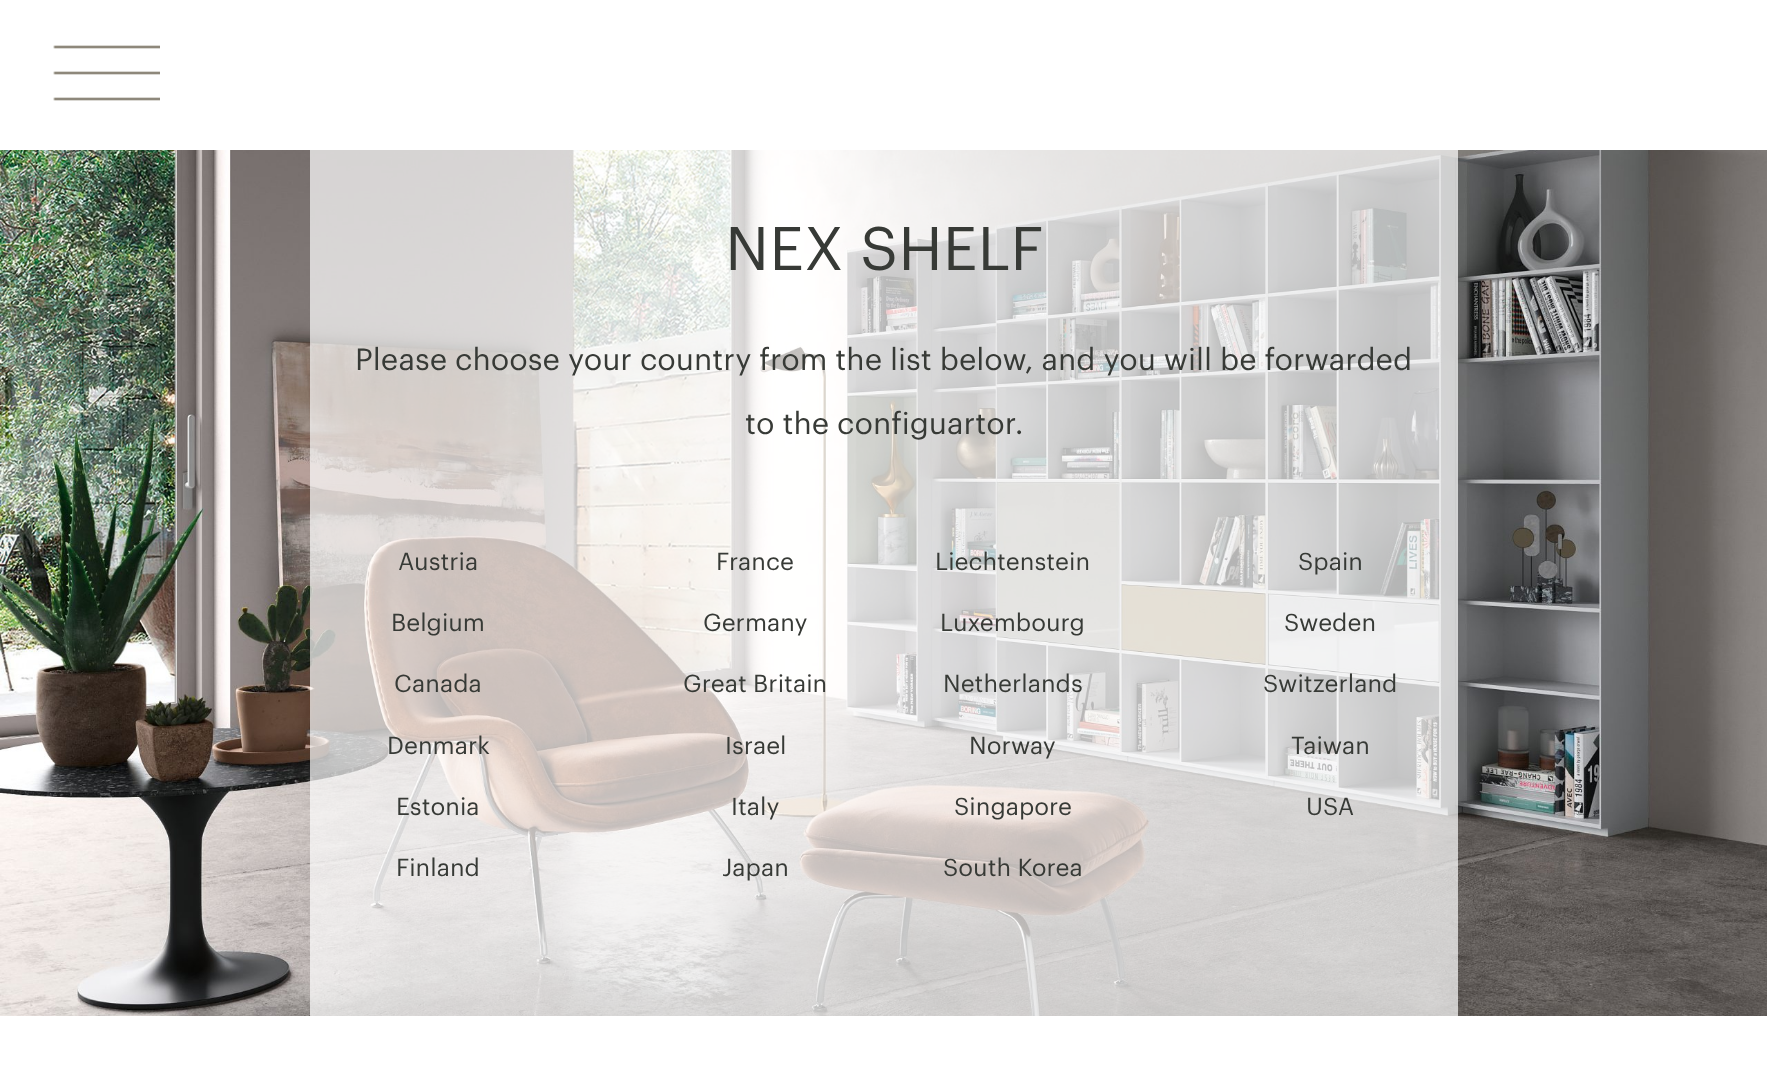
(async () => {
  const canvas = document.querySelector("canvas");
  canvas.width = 1767;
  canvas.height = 1074;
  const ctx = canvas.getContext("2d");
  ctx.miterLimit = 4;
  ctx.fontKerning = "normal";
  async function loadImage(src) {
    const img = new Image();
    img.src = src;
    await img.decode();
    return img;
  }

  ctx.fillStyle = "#ffffff";
  ctx.fillRect(0, 0, 1767, 1074);
  ctx.drawImage(await loadImage("img/1.png"), 53, 45, 107, 56);
  ctx.drawImage(await loadImage("img/2.png"), 0, 150, 1767, 866);
  ctx.fillStyle = "rgba(255, 255, 255, 0.7)";
  ctx.fillRect(310, 150, 1148, 866);
  ctx.font = "60px Graphik";
  ctx.fillStyle = "#373a36";
  ctx.fillText("NEX SHELF", 725, 270);
  ctx.font = "30px Graphik";
  ctx.fillText("Please choose your country from the list below, and you will be forwarded", 355, 370);
  ctx.fillText("to the configuartor.", 745, 434);
  ctx.font = "24px Graphik";
  for (const [text, x, y] of [
    ["Austria", 398, 570],
    ["Belgium", 391, 631],
    ["Canada", 394, 692],
    ["Denmark", 387, 754],
    ["Estonia", 396, 815],
    ["Finland", 396, 876],
    ["France", 716, 570],
    ["Germany", 703, 631],
    ["Great Britain", 683, 692],
    ["Israel", 725, 754],
    ["Italy", 731, 815],
    ["Japan", 722, 876],
    ["Liechtenstein", 935, 570],
    ["Luxembourg", 940, 631],
    ["Netherlands", 943, 692],
    ["Norway", 969, 754],
    ["Singapore", 954, 815],
    ["South Korea", 943, 876],
    ["Spain", 1298, 570],
    ["Sweden", 1284, 631],
    ["Switzerland", 1263, 692],
    ["Taiwan", 1291, 754],
    ["USA", 1306, 815],
  ]) {
    ctx.fillText(text, x, y);
  }
})();
